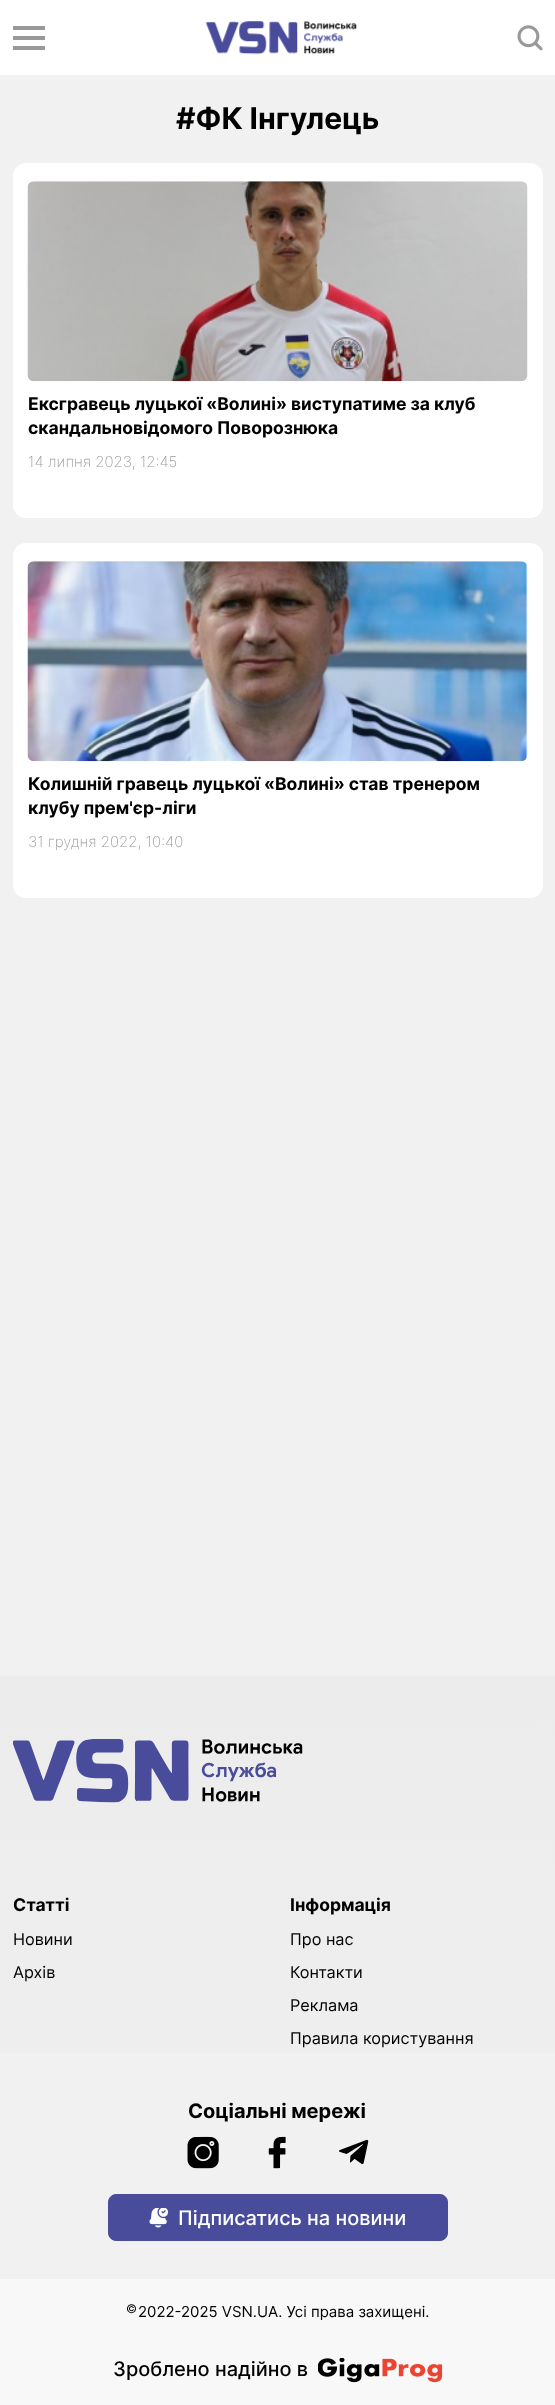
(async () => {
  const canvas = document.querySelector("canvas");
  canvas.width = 555;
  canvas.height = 2405;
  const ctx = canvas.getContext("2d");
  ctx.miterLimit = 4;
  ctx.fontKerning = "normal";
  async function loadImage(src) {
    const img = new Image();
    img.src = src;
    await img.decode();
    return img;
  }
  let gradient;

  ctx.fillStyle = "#f1f1f1";
  ctx.fillRect(0, 0, 555, 2405);
  for (const [x, y, w, h, color] of [
    [0, 0, 555, 75, "#ffffff"],
    [13, 26, 32, 4, "#999999"],
    [13, 36, 32, 4, "#999999"],
    [13, 46, 32, 4, "#999999"],
  ]) {
    ctx.fillStyle = color;
    ctx.fillRect(x, y, w, h);
  }
  ctx.drawImage(await loadImage("img/1.png"), 206, 21, 151, 34);
  ctx.drawImage(await loadImage("img/2.png"), 517, 25, 26, 26);
  ctx.fillStyle = "#ffffff";
  ctx.beginPath();
  ctx.roundRect(13, 163, 530, 355, 13);
  ctx.fill();
  ctx.drawImage(await loadImage("img/3.png"), 27, 181, 501, 201);
  ctx.beginPath();
  ctx.roundRect(13, 543, 530, 355, 13);
  ctx.fill();
  ctx.drawImage(await loadImage("img/4.png"), 27, 561, 501, 201);
  gradient = ctx.createLinearGradient(277, 1676, 278, 2279);
  gradient.addColorStop(0, "#ececed");
  gradient.addColorStop(1, "#f0f0f0");
  ctx.fillStyle = gradient;
  ctx.fillRect(0, 1676, 555, 377);
  ctx.drawImage(await loadImage("img/5.png"), 13, 1739, 290, 64);
  ctx.drawImage(await loadImage("img/6.png"), 187, 2136, 32, 33);
  ctx.drawImage(await loadImage("img/7.png"), 268, 2136, 18, 33);
  ctx.drawImage(await loadImage("img/8.png"), 339, 2139, 30, 25);
  ctx.fillStyle = "#494b9b";
  ctx.beginPath();
  ctx.roundRect(108.5, 2194.5, 339, 46, 7.5);
  ctx.fill();
  ctx.strokeStyle = "#494b9b";
  ctx.stroke();
  ctx.drawImage(await loadImage("img/9.png"), 149, 2208, 20, 20);
  ctx.fillStyle = "#f8f8f8";
  ctx.fillRect(0, 2279, 555, 126);
  ctx.drawImage(await loadImage("img/10.png"), 318, 2358, 125, 25);
  ctx.font = "bold 30px Inter";
  ctx.fillStyle = "#000000";
  ctx.fillText("#ФК Інгулець", 176, 129);
  ctx.font = "bold 17.5px Inter";
  ctx.fillText("Ексгравець луцької «Волині» виступатиме за клуб", 28, 410);
  ctx.fillText("скандальновідомого Поворознюка", 28, 434);
  ctx.font = "200 15px Inter";
  ctx.fillStyle = "#999999";
  ctx.fillText("14 липня 2023, 12:45", 28, 467);
  ctx.font = "bold 17.5px Inter";
  ctx.fillStyle = "#000000";
  ctx.fillText("Колишній гравець луцької «Волині» став тренером", 28, 790);
  ctx.fillText("клубу прем'єр-ліги", 28, 814);
  ctx.font = "200 15px Inter";
  ctx.fillStyle = "#999999";
  ctx.fillText("31 грудня 2022, 10:40", 28, 847);
  ctx.font = "bold 17.5px Inter";
  ctx.fillStyle = "#000000";
  ctx.fillText("Статті", 13, 1911);
  ctx.font = "16.25px Inter";
  ctx.fillText("Новини", 13, 1945);
  ctx.fillText("Архів", 13, 1978);
  ctx.font = "bold 17.5px Inter";
  ctx.fillText("Інформація", 290, 1911);
  ctx.font = "16.25px Inter";
  for (const [text, x, y] of [
    ["Про нас", 290, 1945],
    ["Контакти", 290, 1978],
    ["Реклама", 290, 2011],
    ["Правила користування", 290, 2044],
  ]) {
    ctx.fillText(text, x, y);
  }
  ctx.font = "bold 20px Inter";
  ctx.fillText("Соціальні мережі", 188, 2118);
  ctx.font = "500 20px Inter";
  ctx.fillStyle = "#ffffff";
  ctx.fillText("Підписатись на новини", 178, 2225);
  ctx.font = "12px Inter";
  ctx.fillStyle = "#000000";
  ctx.fillText("©", 126, 2313);
  ctx.font = "15px Inter";
  ctx.fillText("2022-2025 VSN.UA. Усі права захищені.", 138, 2317);
  ctx.font = "500 20px Inter";
  ctx.fillText("Зроблено надійно в", 113, 2376);
})();
